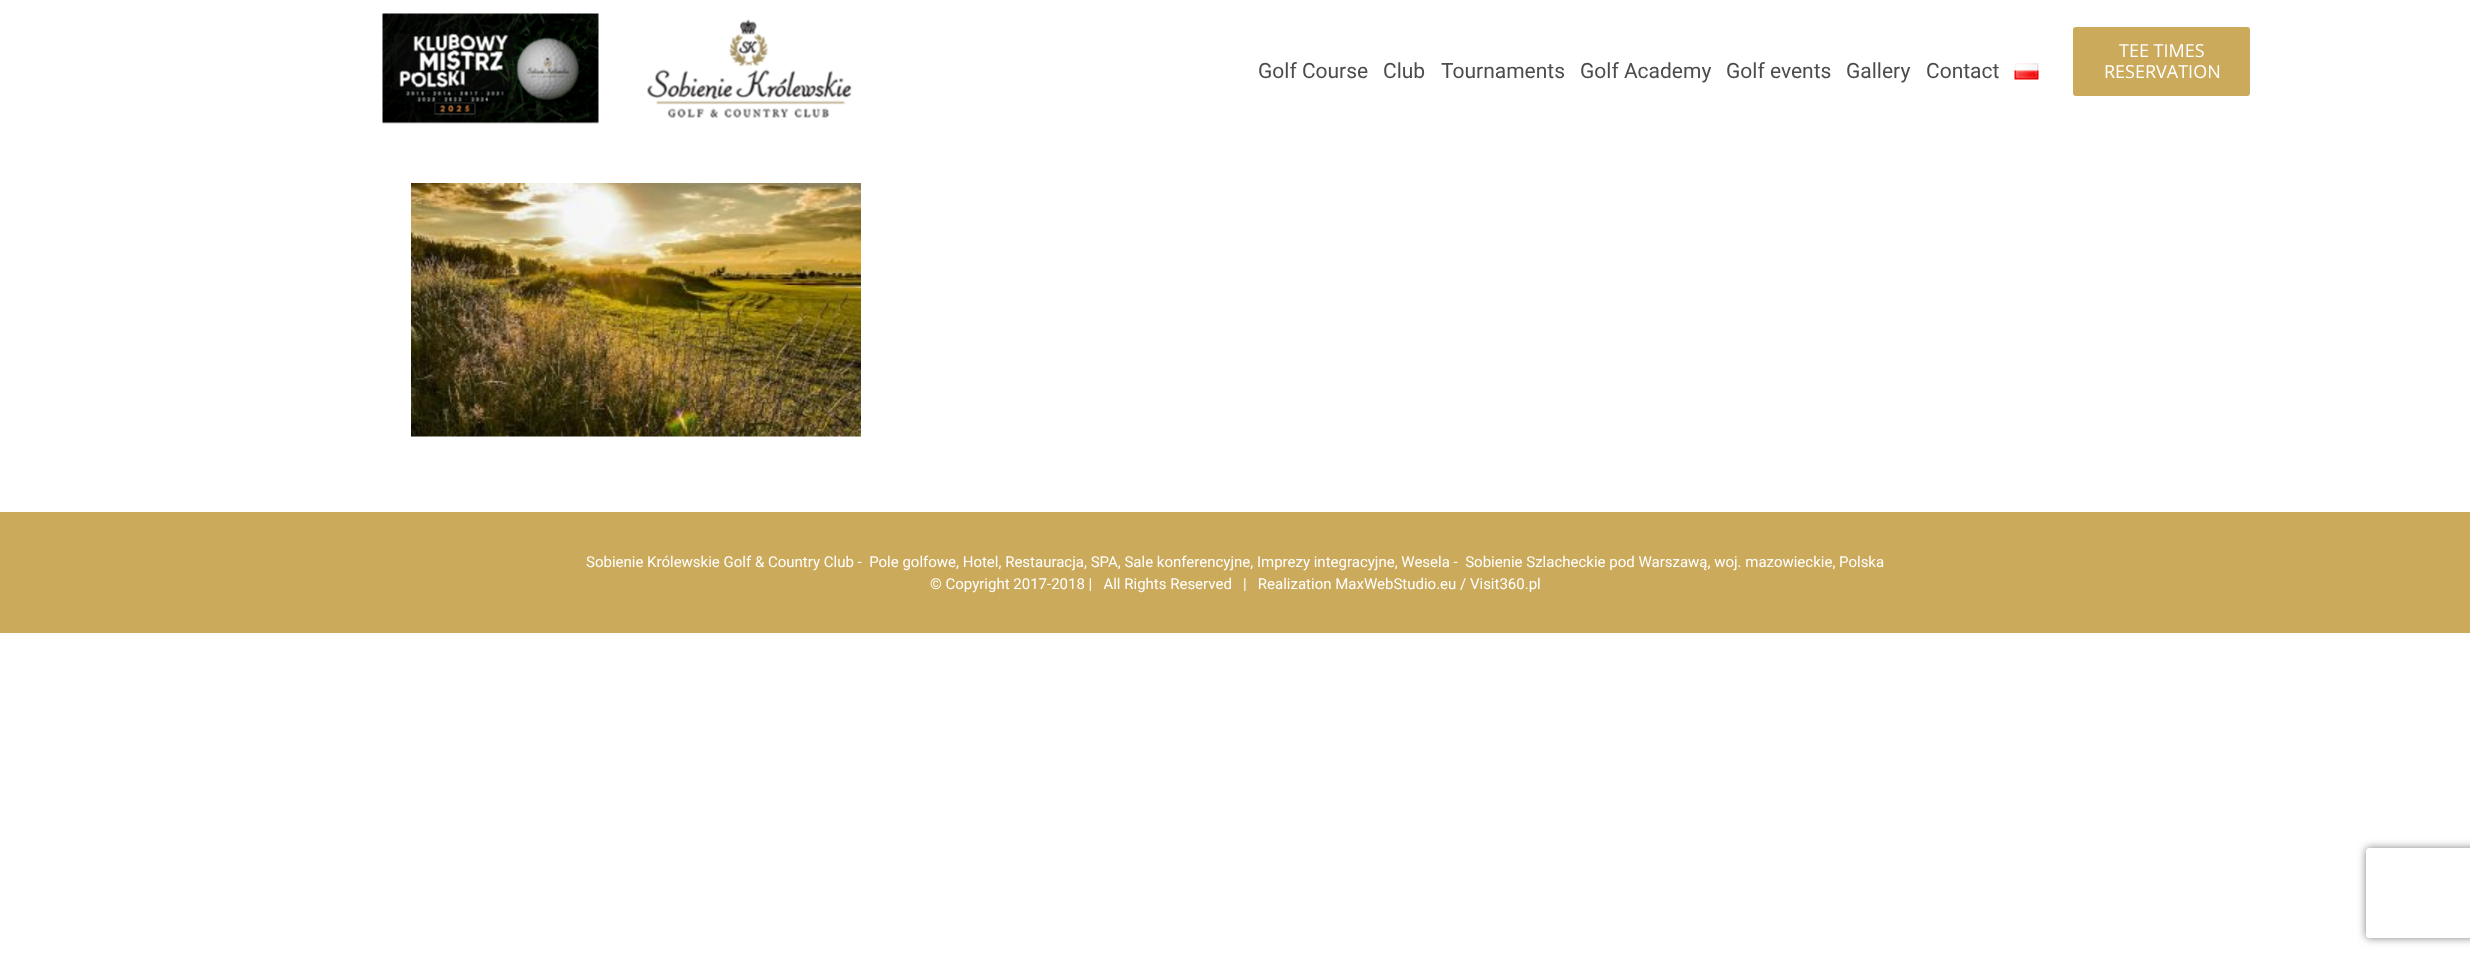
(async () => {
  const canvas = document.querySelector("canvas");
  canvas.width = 2470;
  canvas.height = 958;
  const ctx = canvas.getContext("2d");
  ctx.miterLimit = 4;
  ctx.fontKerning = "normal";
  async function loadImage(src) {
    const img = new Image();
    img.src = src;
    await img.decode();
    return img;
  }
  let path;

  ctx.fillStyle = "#ffffff";
  ctx.fillRect(0, 0, 2470, 958);
  ctx.drawImage(await loadImage("img/1.png"), 382, 13, 217, 111);
  ctx.drawImage(await loadImage("img/2.png"), 647, 19, 205, 99);
  ctx.drawImage(await loadImage("img/3.png"), 2014, 63, 25, 17);
  ctx.fillStyle = "#cbaa5c";
  ctx.beginPath();
  ctx.roundRect(2073, 27, 177, 69, 3);
  ctx.fill();
  ctx.drawImage(await loadImage("img/4.png"), 411, 183, 450, 254);
  ctx.fillRect(0, 512, 2470, 121);
  ctx.save();
  path = new Path2D("M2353 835H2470V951H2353ZM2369 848H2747C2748.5 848 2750 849.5 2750 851V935C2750 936.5 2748.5 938 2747 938H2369C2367.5 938 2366 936.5 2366 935V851C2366 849.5 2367.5 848 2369 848Z");
  ctx.clip(path, "evenodd");
  ctx.fillStyle = "#808080";
  ctx.filter = "blur(4px)";
  ctx.beginPath();
  ctx.roundRect(2366, 848, 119, 90, 3);
  ctx.fill();
  ctx.filter = "none";
  ctx.restore();
  ctx.font = "21px Roboto";
  ctx.fillStyle = "#4c4c4c";
  for (const [text, x, y] of [
    ["Golf Course", 1258, 78],
    ["Club", 1383, 78],
    ["Tournaments", 1441, 78],
    ["Golf Academy", 1580, 78],
    ["Golf events", 1726, 78],
    ["Gallery", 1846, 78],
    ["Contact", 1926, 78],
  ]) {
    ctx.fillText(text, x, y);
  }
  ctx.font = "18px Open Sans";
  ctx.fillStyle = "#ffffff";
  ctx.fillText("TEE TIMES", 2119, 57);
  ctx.fillText("RESERVATION", 2104, 78);
  ctx.font = "15px Roboto";
  ctx.fillText("Sobienie Królewskie Golf & Country Club -  Pole golfowe, Hotel, Restauracja, SPA, Sale konferencyjne, Imprezy integracyjne, Wesela -  Sobienie Szlacheckie pod Warszawą, woj. mazowieckie, Polska", 586, 567);
  ctx.fillText("© Copyright 2017-2018 |   All Rights Reserved   |   Realization MaxWebStudio.eu / Visit360.pl", 930, 589);
})();
